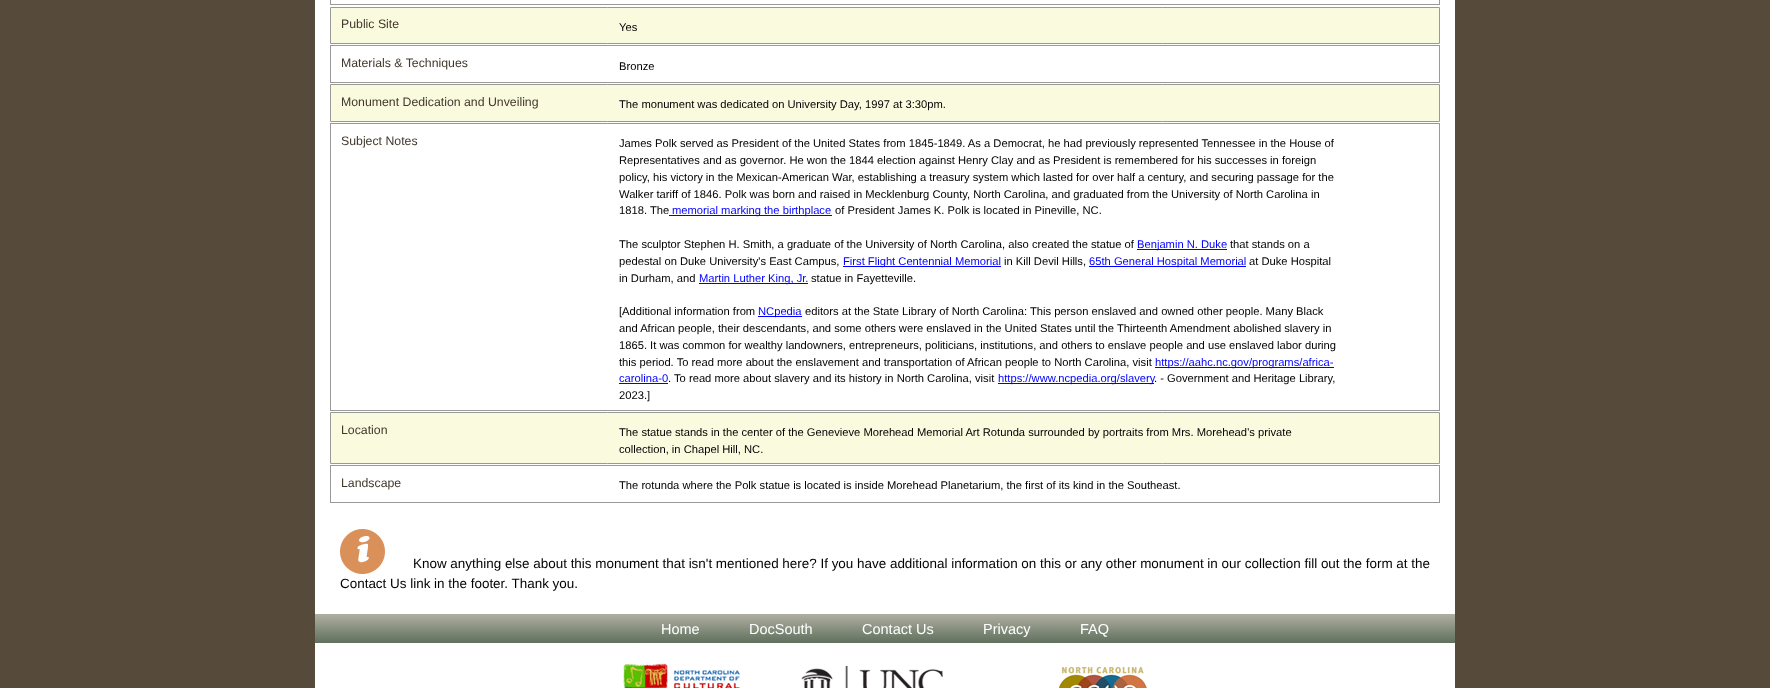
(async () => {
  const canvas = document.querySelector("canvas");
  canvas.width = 1770;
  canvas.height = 688;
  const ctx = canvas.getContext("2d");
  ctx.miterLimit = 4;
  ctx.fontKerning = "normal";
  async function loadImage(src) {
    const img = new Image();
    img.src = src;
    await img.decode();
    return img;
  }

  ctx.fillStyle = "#564a3a";
  ctx.fillRect(0, 0, 1770, 688);
  ctx.fillStyle = "#ffffff";
  ctx.fillRect(315, 0, 1140, 688);
  ctx.strokeStyle = "#999999";
  ctx.strokeRect(330.5, -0.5, 1109, 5);
  ctx.fillStyle = "#fafadf";
  ctx.beginPath();
  ctx.rect(330.5, 7.5, 1109, 36);
  ctx.fill();
  ctx.stroke();
  ctx.strokeRect(330.5, 45.5, 1109, 37);
  ctx.beginPath();
  ctx.rect(330.5, 84.5, 1109, 37);
  ctx.fill();
  ctx.stroke();
  ctx.strokeRect(330.5, 123.5, 1109, 287);
  for (const [x, y, w, h, color] of [
    [669, 215, 163, 1, "#0000ff"],
    [1137, 249, 90, 1, "#0000ff"],
    [843, 266, 158, 1, "#0000ff"],
    [1089, 266, 157, 1, "#0000ff"],
    [699, 283, 109, 1, "#0000ff"],
    [758, 316, 44, 1, "#0000ff"],
    [1155, 367, 179, 1, "#0000ff"],
    [619, 383, 49, 1, "#0000ff"],
    [998, 383, 156, 1, "#0000ff"],
  ]) {
    ctx.fillStyle = color;
    ctx.fillRect(x, y, w, h);
  }
  ctx.fillStyle = "#fafadf";
  ctx.beginPath();
  ctx.rect(330.5, 412.5, 1109, 51);
  ctx.fill();
  ctx.stroke();
  ctx.strokeRect(330.5, 465.5, 1109, 37);
  ctx.drawImage(await loadImage("img/1.png"), 340, 529, 45, 45);
  ctx.drawImage(await loadImage("img/2.png"), 315, 614, 1140, 29);
  ctx.drawImage(await loadImage("img/3.png"), 637, 614, 87, 29);
  ctx.drawImage(await loadImage("img/4.png"), 724, 614, 113, 29);
  ctx.drawImage(await loadImage("img/5.png"), 837, 614, 121, 29);
  ctx.drawImage(await loadImage("img/6.png"), 958, 614, 97, 29);
  ctx.drawImage(await loadImage("img/7.png"), 1055, 614, 78, 29);
  ctx.drawImage(await loadImage("img/8.png"), 623, 663, 117, 25);
  ctx.drawImage(await loadImage("img/9.png"), 801, 666, 143, 22);
  ctx.drawImage(await loadImage("img/10.png"), 1058, 667, 89, 21);
  ctx.font = "12.3px Liberation Sans";
  ctx.fillStyle = "#41382c";
  ctx.fillText("Public Site", 341, 28);
  ctx.font = "11.2px Liberation Sans";
  ctx.fillStyle = "#000000";
  ctx.fillText("Yes", 619, 31);
  ctx.font = "12.3px Liberation Sans";
  ctx.fillStyle = "#41382c";
  ctx.fillText("Materials & Techniques", 341, 67);
  ctx.font = "11.2px Liberation Sans";
  ctx.fillStyle = "#000000";
  ctx.fillText("Bronze", 619, 70);
  ctx.font = "12.3px Liberation Sans";
  ctx.fillStyle = "#41382c";
  ctx.fillText("Monument Dedication and Unveiling", 341, 106);
  ctx.font = "11.2px Liberation Sans";
  ctx.fillStyle = "#000000";
  ctx.fillText("The monument was dedicated on University Day, 1997 at 3:30pm.", 619, 108);
  ctx.font = "12.3px Liberation Sans";
  ctx.fillStyle = "#41382c";
  ctx.fillText("Subject Notes", 341, 145);
  ctx.font = "11.2px Liberation Sans";
  ctx.fillStyle = "#000000";
  for (const [text, x, y] of [
    ["James Polk served as President of the United States from 1845-1849. As a Democrat, he had previously represented Tennessee in the House of", 619, 147],
    ["Representatives and as governor. He won the 1844 election against Henry Clay and as President is remembered for his successes in foreign", 619, 164],
    ["policy, his victory in the Mexican-American War, establishing a treasury system which lasted for over half a century, and securing passage for the", 619, 181],
    ["Walker tariff of 1846. Polk was born and raised in Mecklenburg County, North Carolina, and graduated from the University of North Carolina in", 619, 198],
    ["1818. The", 619, 214],
  ]) {
    ctx.fillText(text, x, y);
  }
  ctx.fillStyle = "#0000ff";
  ctx.fillText("memorial marking the birthplace", 672, 214);
  ctx.fillStyle = "#000000";
  ctx.fillText("of President James K. Polk is located in Pineville, NC.", 835, 214);
  ctx.fillText("The sculptor Stephen H. Smith, a graduate of the University of North Carolina, also created the statue of", 619, 248);
  ctx.fillStyle = "#0000ff";
  ctx.fillText("Benjamin N. Duke", 1137, 248);
  ctx.fillStyle = "#000000";
  ctx.fillText("that stands on a", 1230, 248);
  ctx.fillText("pedestal on Duke University's East Campus,", 619, 265);
  ctx.fillStyle = "#0000ff";
  ctx.fillText("First Flight Centennial Memorial", 843, 265);
  ctx.fillStyle = "#000000";
  ctx.fillText("in Kill Devil Hills,", 1004, 265);
  ctx.fillStyle = "#0000ff";
  ctx.fillText("65th General Hospital Memorial", 1089, 265);
  ctx.fillStyle = "#000000";
  ctx.fillText("at Duke Hospital", 1249, 265);
  ctx.fillText("in Durham, and", 619, 282);
  ctx.fillStyle = "#0000ff";
  ctx.fillText("Martin Luther King, Jr.", 699, 282);
  ctx.fillStyle = "#000000";
  ctx.fillText("statue in Fayetteville.", 811, 282);
  ctx.fillText("[Additional information from", 619, 315);
  ctx.fillStyle = "#0000ff";
  ctx.fillText("NCpedia", 758, 315);
  ctx.fillStyle = "#000000";
  for (const [text, x, y] of [
    ["editors at the State Library of North Carolina: This person enslaved and owned other people. Many Black", 805, 315],
    ["and African people, their descendants, and some others were enslaved in the United States until the Thirteenth Amendment abolished slavery in", 619, 332],
    ["1865. It was common for wealthy landowners, entrepreneurs, politicians, institutions, and others to enslave people and use enslaved labor during", 619, 349],
    ["this period. To read more about the enslavement and transportation of African people to North Carolina, visit", 619, 366],
  ]) {
    ctx.fillText(text, x, y);
  }
  ctx.fillStyle = "#0000ff";
  ctx.fillText("https://aahc.nc.gov/programs/africa-", 1155, 366);
  ctx.fillText("carolina-0", 619, 382);
  ctx.fillStyle = "#000000";
  ctx.fillText(". To read more about slavery and its history in North Carolina, visit", 668, 382);
  ctx.fillStyle = "#0000ff";
  ctx.fillText("https://www.ncpedia.org/slavery", 998, 382);
  ctx.fillStyle = "#000000";
  ctx.fillText(". - Government and Heritage Library,", 1154, 382);
  ctx.fillText("2023.]", 619, 399);
  ctx.font = "12.3px Liberation Sans";
  ctx.fillStyle = "#41382c";
  ctx.fillText("Location", 341, 434);
  ctx.font = "11.2px Liberation Sans";
  ctx.fillStyle = "#000000";
  ctx.fillText("The statue stands in the center of the Genevieve Morehead Memorial Art Rotunda surrounded by portraits from Mrs. Morehead’s private", 619, 436);
  ctx.fillText("collection, in Chapel Hill, NC.", 619, 453);
  ctx.font = "12.3px Liberation Sans";
  ctx.fillStyle = "#41382c";
  ctx.fillText("Landscape", 341, 487);
  ctx.font = "11.2px Liberation Sans";
  ctx.fillStyle = "#000000";
  ctx.fillText("The rotunda where the Polk statue is located is inside Morehead Planetarium, the first of its kind in the Southeast.", 619, 489);
  ctx.font = "13.45px Liberation Sans";
  ctx.fillText("Know anything else about this monument that isn't mentioned here? If you have additional information on this or any other monument in our collection fill out the form at the", 413, 568);
  ctx.fillText("Contact Us link in the footer. Thank you.", 340, 588);
  ctx.font = "14.5px Liberation Sans";
  ctx.fillStyle = "#ffffff";
  for (const [text, x, y] of [
    ["Home", 661, 634],
    ["DocSouth", 749, 634],
    ["Contact Us", 862, 634],
    ["Privacy", 983, 634],
    ["FAQ", 1080, 634],
  ]) {
    ctx.fillText(text, x, y);
  }
})();
